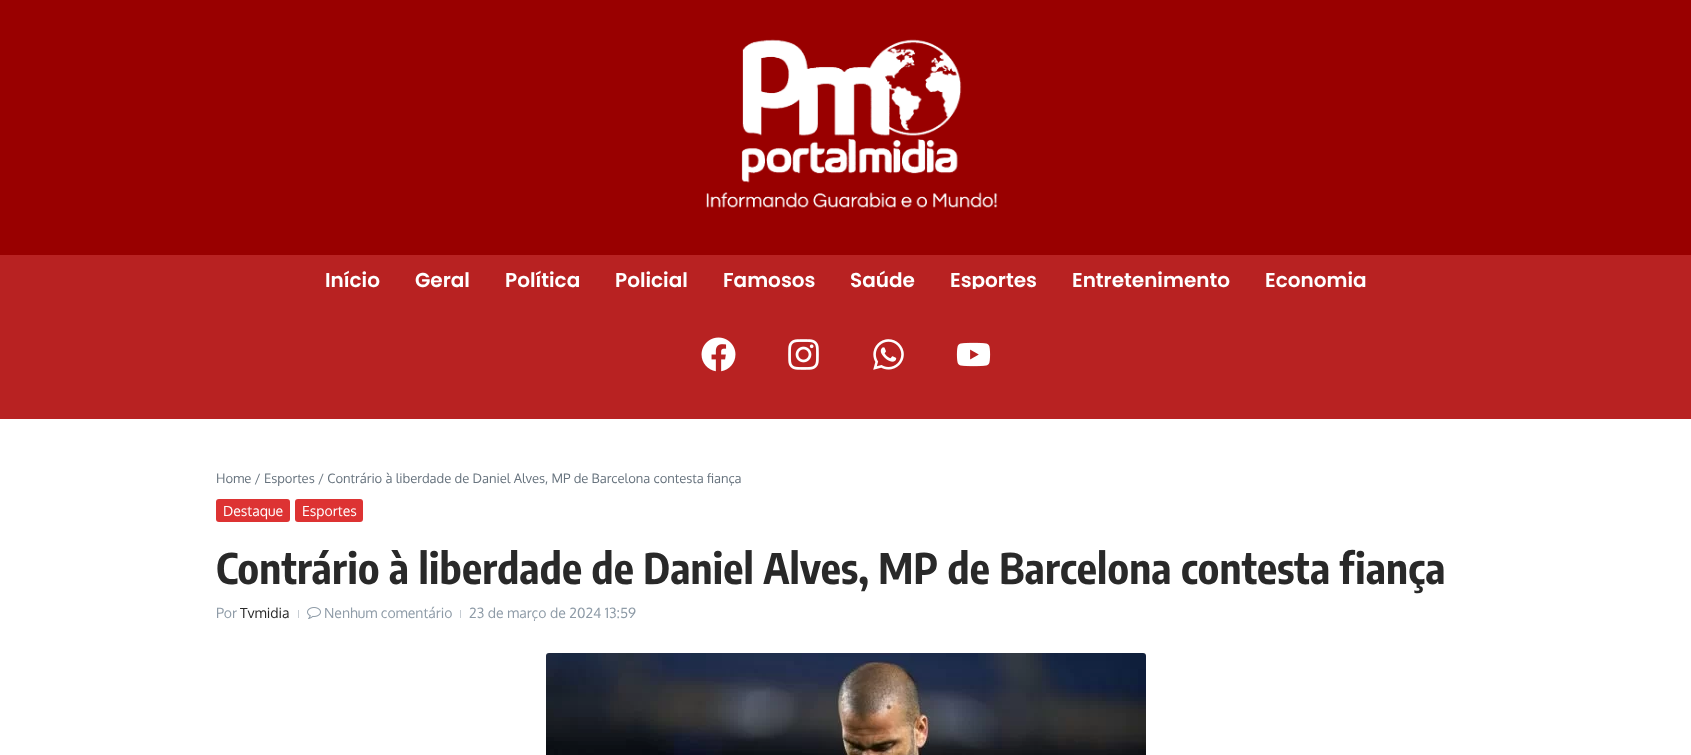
(async () => {
  const canvas = document.querySelector("canvas");
  canvas.width = 1691;
  canvas.height = 755;
  const ctx = canvas.getContext("2d");
  ctx.miterLimit = 4;
  ctx.fontKerning = "normal";
  async function loadImage(src) {
    const img = new Image();
    img.src = src;
    await img.decode();
    return img;
  }

  ctx.fillStyle = "#ffffff";
  ctx.fillRect(0, 0, 1691, 755);
  ctx.fillStyle = "#990000";
  ctx.fillRect(0, 0, 1691, 255);
  ctx.drawImage(await loadImage("img/1.png"), 706, 39, 292, 169);
  ctx.fillStyle = "#b82222";
  ctx.fillRect(0, 255, 1691, 34);
  ctx.fillStyle = "#dd3333";
  ctx.beginPath();
  ctx.roundRect(216, 499, 74, 23, 3);
  ctx.fill();
  ctx.beginPath();
  ctx.roundRect(295, 499, 68, 23, 3);
  ctx.fill();
  ctx.fillStyle = "#c7cdd3";
  ctx.fillRect(298, 610, 1, 8);
  ctx.drawImage(await loadImage("img/6.png"), 307, 607, 14, 12);
  ctx.fillRect(460, 610, 1, 8);
  ctx.drawImage(await loadImage("img/7.png"), 546, 653, 600, 102);
  ctx.font = "600 20px Poppins";
  ctx.fillStyle = "#ffffff";
  for (const [text, x, y] of [
    ["Início", 325, 287],
    ["Geral", 415, 287],
    ["Política", 505, 287],
    ["Policial", 615, 287],
    ["Famosos", 723, 287],
    ["Saúde", 850, 287],
    ["Esportes", 950, 287],
    ["Entretenimento", 1072, 287],
    ["Economia", 1265, 287],
  ]) {
    ctx.fillText(text, x, y);
  }
  ctx.fillStyle = "#b82222";
  ctx.fillRect(0, 289, 1691, 130);
  ctx.drawImage(await loadImage("img/2.png"), 701, 337, 35, 35);
  ctx.drawImage(await loadImage("img/3.png"), 788, 339, 31, 31);
  ctx.drawImage(await loadImage("img/4.png"), 873, 339, 31, 31);
  ctx.drawImage(await loadImage("img/5.png"), 956, 342, 35, 25);
  ctx.font = "13px Oxygen";
  ctx.fillStyle = "#67737e";
  ctx.fillText("Home / Esportes / Contrário à liberdade de Daniel Alves, MP de Barcelona contesta fiança", 216, 483);
  ctx.font = "14px Oxygen";
  ctx.fillStyle = "#ffffff";
  ctx.fillText("Destaque", 223, 516);
  ctx.fillText("Esportes", 302, 516);
  ctx.letterSpacing = "0.2px";
  ctx.font = "bold 42px Encode Sans Condensed";
  ctx.fillStyle = "#292929";
  ctx.fillText("Contrário à liberdade de Daniel Alves, MP de Barcelona contesta fiança", 216, 584);
  ctx.letterSpacing = "0px";
  ctx.font = "14px Oxygen";
  ctx.fillStyle = "#8e9ba7";
  ctx.fillText("Por", 216, 618);
  ctx.fillStyle = "#292929";
  ctx.fillText("Tvmidia", 240, 618);
  ctx.fillStyle = "#8e9ba7";
  ctx.fillText("Nenhum comentário", 324, 618);
  ctx.fillText("23 de março de 2024 13:59", 469, 618);
})();
